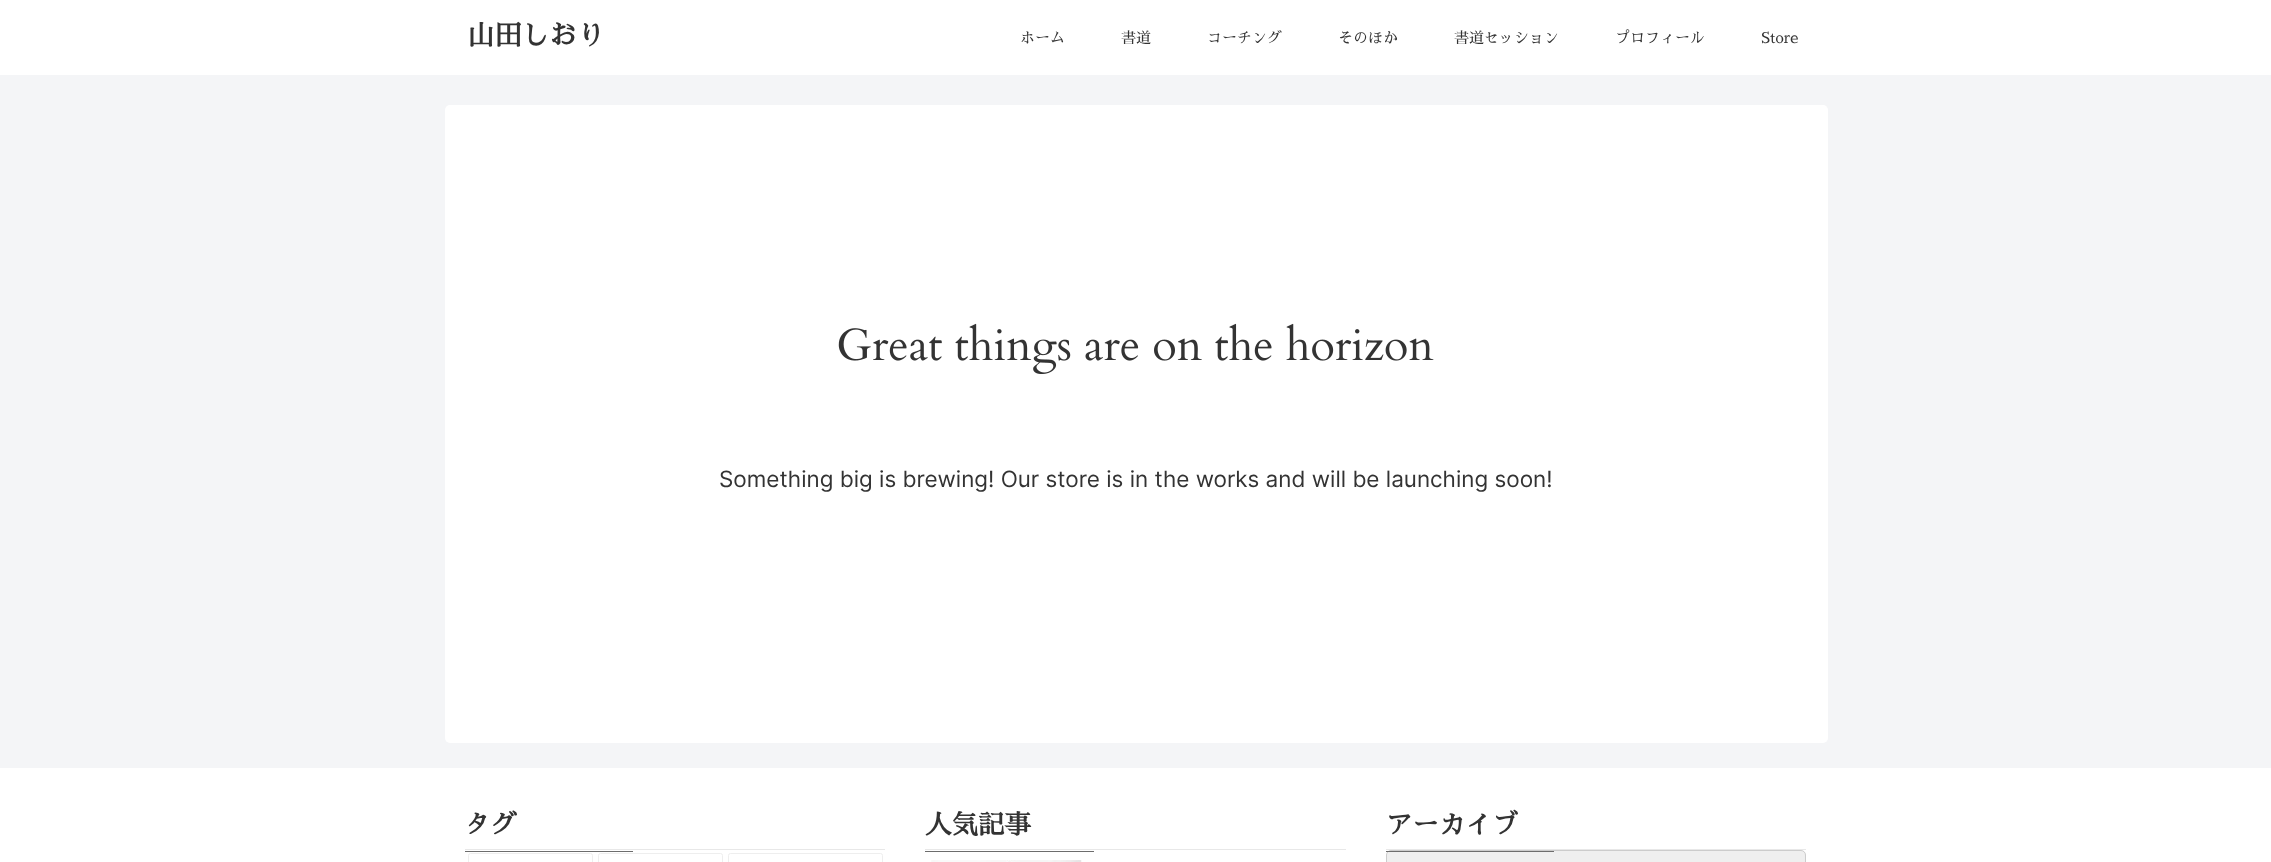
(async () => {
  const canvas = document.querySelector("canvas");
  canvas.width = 2271;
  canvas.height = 862;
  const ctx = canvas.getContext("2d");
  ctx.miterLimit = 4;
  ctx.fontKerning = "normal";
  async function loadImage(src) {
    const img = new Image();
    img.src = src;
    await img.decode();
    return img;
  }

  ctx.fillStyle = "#f4f5f7";
  ctx.fillRect(0, 0, 2271, 862);
  ctx.fillStyle = "#ffffff";
  ctx.fillRect(0, 0, 2271, 75);
  ctx.beginPath();
  ctx.roundRect(445, 105, 1383, 638, 5);
  ctx.fill();
  ctx.drawImage(await loadImage("img/1.png"), 838, 323, 596, 51);
  for (const [x, y, w, h, color] of [
    [0, 768, 2271, 94, "#ffffff"],
    [465, 849, 420, 1, "#e8e8e8"],
    [465, 851, 168, 1, "#6d6d6d"],
  ]) {
    ctx.fillStyle = color;
    ctx.fillRect(x, y, w, h);
  }
  ctx.beginPath();
  ctx.roundRect(468.5, 853.5, 124, 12, 2);
  ctx.strokeStyle = "#eeeeee";
  ctx.stroke();
  ctx.beginPath();
  ctx.roundRect(598.5, 853.5, 124, 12, 2);
  ctx.stroke();
  ctx.beginPath();
  ctx.roundRect(728.5, 853.5, 154, 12, 2);
  ctx.stroke();
  ctx.fillStyle = "#e8e8e8";
  ctx.fillRect(925, 849, 421, 1);
  ctx.fillStyle = "#6d6d6d";
  ctx.fillRect(925, 851, 169, 1);
  ctx.drawImage(await loadImage("img/2.png"), 931, 860, 151, 2);
  ctx.fillStyle = "#e8e8e8";
  ctx.fillRect(1386, 849, 420, 1);
  ctx.fillStyle = "#efefef";
  ctx.beginPath();
  ctx.roundRect(1386.5, 850.5, 419, 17, 4.5);
  ctx.fill();
  ctx.strokeStyle = "#cccccc";
  ctx.stroke();
  ctx.fillStyle = "#6d6d6d";
  ctx.fillRect(1386, 851, 168, 1);
  ctx.font = "bold 27.5px Sawarabi Mincho";
  ctx.fillStyle = "#333333";
  ctx.fillText("山田しおり", 467, 45);
  ctx.font = "15px Sawarabi Mincho";
  for (const [text, x, y] of [
    ["ホーム", 1020, 43],
    ["書道", 1121, 43],
    ["コーチング", 1207, 43],
    ["そのほか", 1338, 43],
    ["書道セッション", 1454, 43],
    ["プロフィール", 1615, 43],
    ["Store", 1761, 43],
  ]) {
    ctx.fillText(text, x, y);
  }
  ctx.font = "22.5px Inter";
  ctx.fillText("Something big is brewing! Our store is in the works and will be launching soon!", 719, 487);
  ctx.font = "bold 26.5px Sawarabi Mincho";
  for (const [text, x, y] of [
    ["タグ", 464, 834],
    ["人気記事", 925, 834],
    ["アーカイブ", 1386, 834],
  ]) {
    ctx.fillText(text, x, y);
  }
})();
